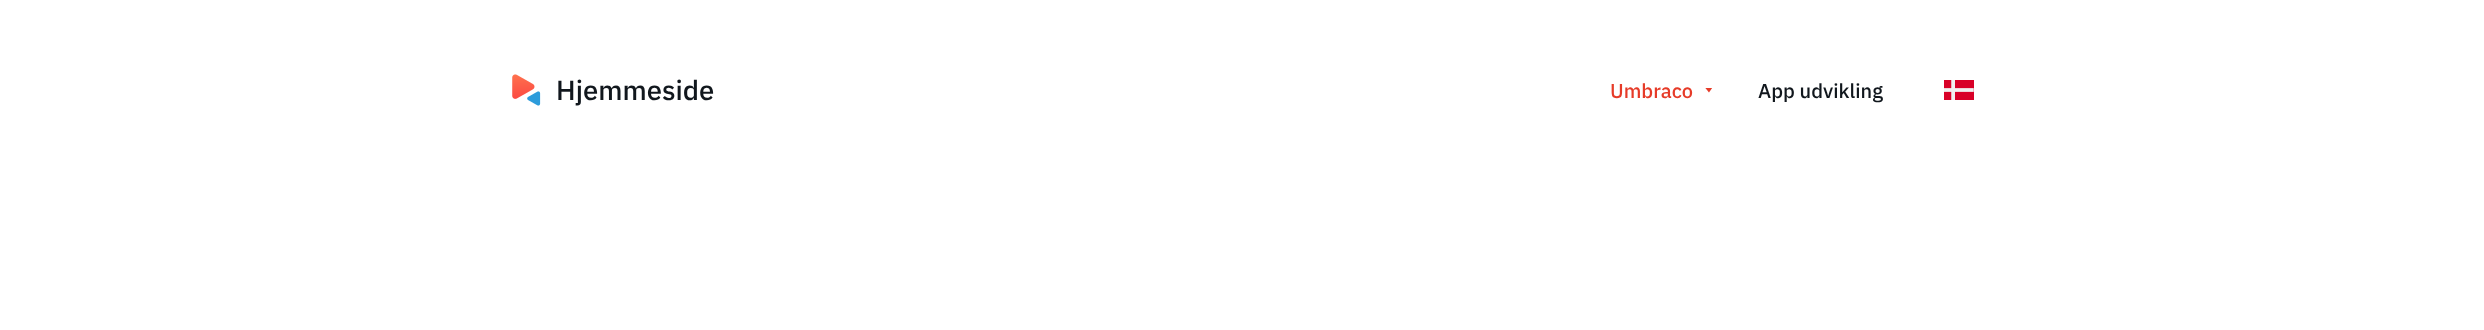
(async () => {
  const canvas = document.querySelector("canvas");
  canvas.width = 2484;
  canvas.height = 330;
  const ctx = canvas.getContext("2d");
  ctx.miterLimit = 4;
  ctx.fontKerning = "normal";
  async function loadImage(src) {
    const img = new Image();
    img.src = src;
    await img.decode();
    return img;
  }
  let path;

  ctx.fillStyle = "#ffffff";
  ctx.fillRect(0, 0, 2484, 330);
  ctx.drawImage(await loadImage("img/1.png"), 512, 74, 29, 32);
  ctx.save();
  ctx.beginPath();
  ctx.rect(1705, 88, 8, 5);
  ctx.clip();
  ctx.fillStyle = "#e63b28";
  path = new Path2D("M1705 87.5H1712.5L1709 92.5Z");
  ctx.fill(path);
  ctx.restore();
  ctx.drawImage(await loadImage("img/2.png"), 1944, 80, 30, 20);
  ctx.font = "500 27.5px IBM Plex Sans";
  ctx.fillStyle = "#11171d";
  ctx.fillText("Hjemmeside", 556, 100);
  ctx.font = "500 20px IBM Plex Sans";
  ctx.fillStyle = "#e63b28";
  ctx.fillText("Umbraco", 1610, 98);
  ctx.fillStyle = "#11171d";
  ctx.fillText("App udvikling", 1758, 98);
})();
